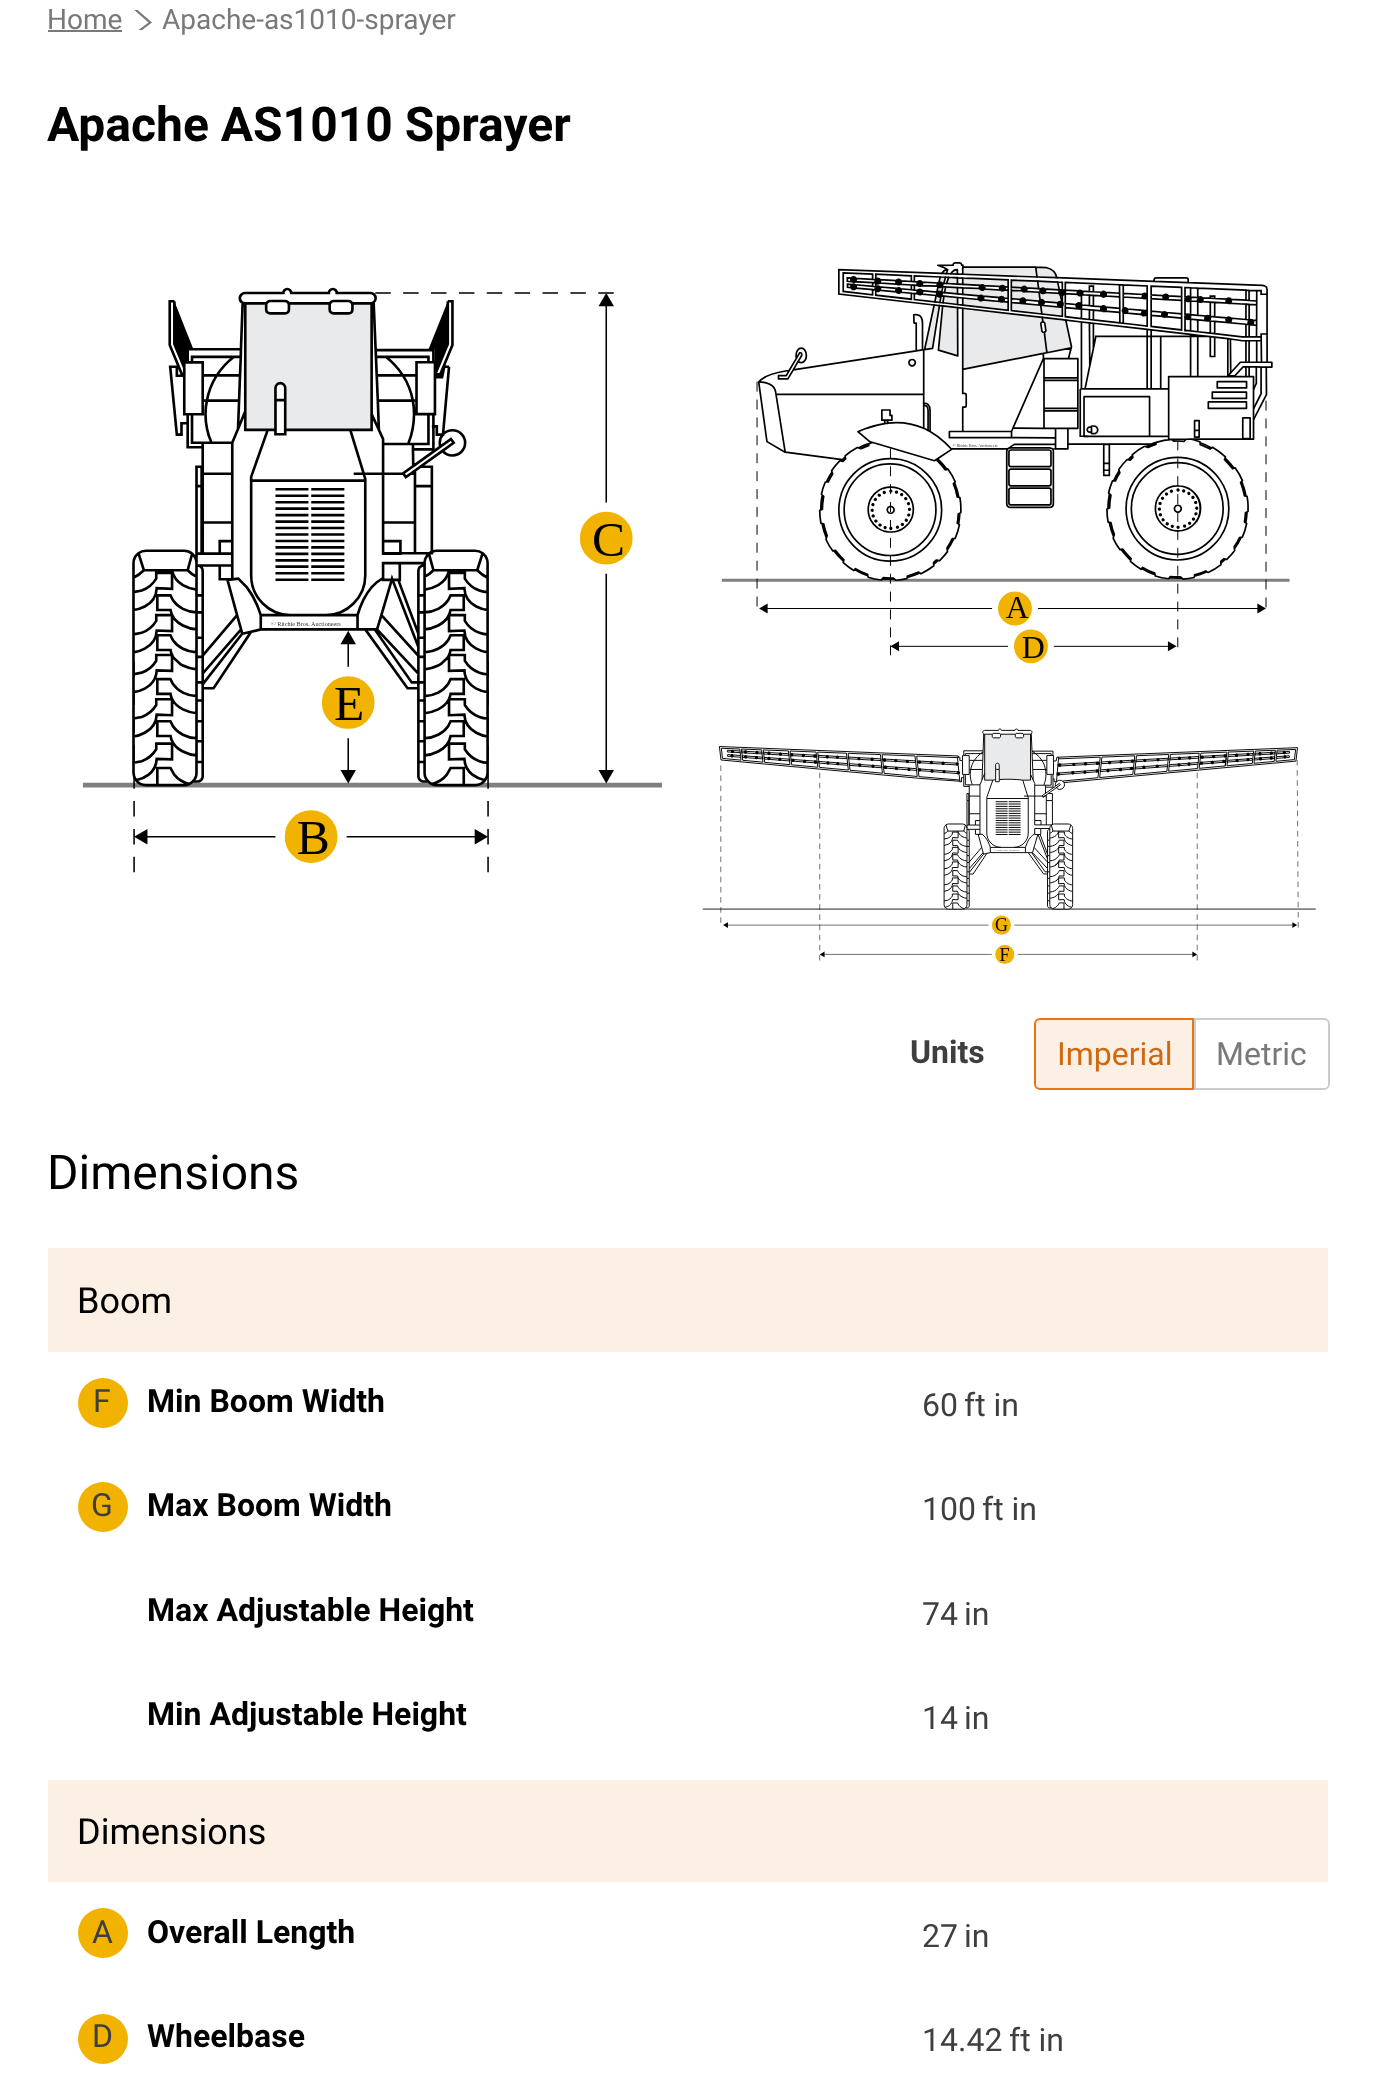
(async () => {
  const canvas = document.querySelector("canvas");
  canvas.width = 1373;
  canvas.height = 2093;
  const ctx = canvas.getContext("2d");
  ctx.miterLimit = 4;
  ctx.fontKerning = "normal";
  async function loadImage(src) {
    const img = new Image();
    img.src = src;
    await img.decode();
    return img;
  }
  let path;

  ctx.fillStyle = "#ffffff";
  ctx.fillRect(0, 0, 1373, 2093);
  ctx.fillStyle = "#797979";
  ctx.fillRect(48, 30, 74, 2);
  ctx.save();
  ctx.beginPath();
  ctx.rect(132, 10, 20, 20);
  ctx.clip();
  path = new Path2D("M132 35L148.5 22.5L132 8L133 6L152 22.5L133 37Z");
  ctx.fill(path, "evenodd");
  ctx.restore();
  ctx.drawImage(await loadImage("img/1.png"), 82, 287, 580, 586);
  ctx.drawImage(await loadImage("img/2.png"), 721, 262, 569, 402);
  ctx.drawImage(await loadImage("img/3.png"), 702, 728, 614, 236);
  ctx.fillStyle = "#fcefe4";
  ctx.beginPath();
  ctx.roundRect(1035, 1019, 158, 70, [5, 0, 0, 5]);
  ctx.fill();
  ctx.strokeStyle = "#e87511";
  ctx.lineWidth = 2;
  ctx.stroke();
  ctx.beginPath();
  ctx.roundRect(1195, 1019, 134, 70, [0, 5, 5, 0]);
  ctx.strokeStyle = "#cccccc";
  ctx.stroke();
  ctx.fillRect(48, 1248, 1280, 104);
  ctx.fillStyle = "#f2b200";
  ctx.beginPath();
  ctx.arc(103, 1403, 25, 0, Math.PI * 2);
  ctx.fill();
  ctx.beginPath();
  ctx.arc(103, 1507, 25, 0, Math.PI * 2);
  ctx.fill();
  ctx.fillStyle = "#fcefe4";
  ctx.fillRect(48, 1780, 1280, 102);
  ctx.fillStyle = "#f2b200";
  ctx.beginPath();
  ctx.arc(103, 1933, 25, 0, Math.PI * 2);
  ctx.fill();
  ctx.beginPath();
  ctx.arc(103, 2039, 25, 0, Math.PI * 2);
  ctx.fill();
  ctx.font = "28px Roboto";
  ctx.fillStyle = "#797979";
  ctx.fillText("Home", 47, 29);
  ctx.fillText("Apache-as1010-sprayer", 162, 29);
  ctx.font = "bold 48px Roboto";
  ctx.fillStyle = "#000000";
  ctx.fillText("Apache AS1010 Sprayer", 47, 141);
  ctx.font = "bold 32px Roboto";
  ctx.fillStyle = "#3f3f3f";
  ctx.fillText("Units", 910, 1063);
  ctx.font = "32px Roboto";
  ctx.fillStyle = "#d1680f";
  ctx.fillText("Imperial", 1057, 1065);
  ctx.fillStyle = "#797979";
  ctx.fillText("Metric", 1216, 1065);
  ctx.font = "48px Roboto";
  ctx.fillStyle = "#000000";
  ctx.fillText("Dimensions", 47, 1189);
  ctx.font = "36px Roboto";
  ctx.fillText("Boom", 77, 1313);
  ctx.font = "32px Roboto";
  ctx.fillStyle = "#3f3f3f";
  ctx.fillText("F", 93, 1412);
  ctx.font = "bold 32px Roboto";
  ctx.fillStyle = "#000000";
  ctx.fillText("Min Boom Width", 147, 1412);
  ctx.font = "32px Roboto";
  ctx.fillStyle = "#3f3f3f";
  for (const [text, x, y] of [
    ["60", 922, 1416],
    ["ft in", 964, 1416],
    ["G", 91, 1516],
  ]) {
    ctx.fillText(text, x, y);
  }
  ctx.font = "bold 32px Roboto";
  ctx.fillStyle = "#000000";
  ctx.fillText("Max Boom Width", 147, 1516);
  ctx.font = "32px Roboto";
  ctx.fillStyle = "#3f3f3f";
  ctx.fillText("100", 922, 1520);
  ctx.fillText("ft in", 982, 1520);
  ctx.font = "bold 32px Roboto";
  ctx.fillStyle = "#000000";
  ctx.fillText("Max Adjustable Height", 147, 1621);
  ctx.font = "32px Roboto";
  ctx.fillStyle = "#3f3f3f";
  ctx.fillText("74", 922, 1625);
  ctx.fillText("in", 964, 1625);
  ctx.font = "bold 32px Roboto";
  ctx.fillStyle = "#000000";
  ctx.fillText("Min Adjustable Height", 147, 1725);
  ctx.font = "32px Roboto";
  ctx.fillStyle = "#3f3f3f";
  ctx.fillText("14", 922, 1729);
  ctx.fillText("in", 964, 1729);
  ctx.font = "36px Roboto";
  ctx.fillStyle = "#000000";
  ctx.fillText("Dimensions", 77, 1844);
  ctx.font = "32px Roboto";
  ctx.fillStyle = "#3f3f3f";
  ctx.fillText("A", 92, 1943);
  ctx.font = "bold 32px Roboto";
  ctx.fillStyle = "#000000";
  ctx.fillText("Overall Length", 147, 1943);
  ctx.font = "32px Roboto";
  ctx.fillStyle = "#3f3f3f";
  for (const [text, x, y] of [
    ["27", 922, 1947],
    ["in", 964, 1947],
    ["D", 92, 2047],
  ]) {
    ctx.fillText(text, x, y);
  }
  ctx.font = "bold 32px Roboto";
  ctx.fillStyle = "#000000";
  ctx.fillText("Wheelbase", 147, 2047);
  ctx.font = "32px Roboto";
  ctx.fillStyle = "#3f3f3f";
  ctx.fillText("14.42", 922, 2051);
  ctx.fillText("ft in", 1009, 2051);
})();
